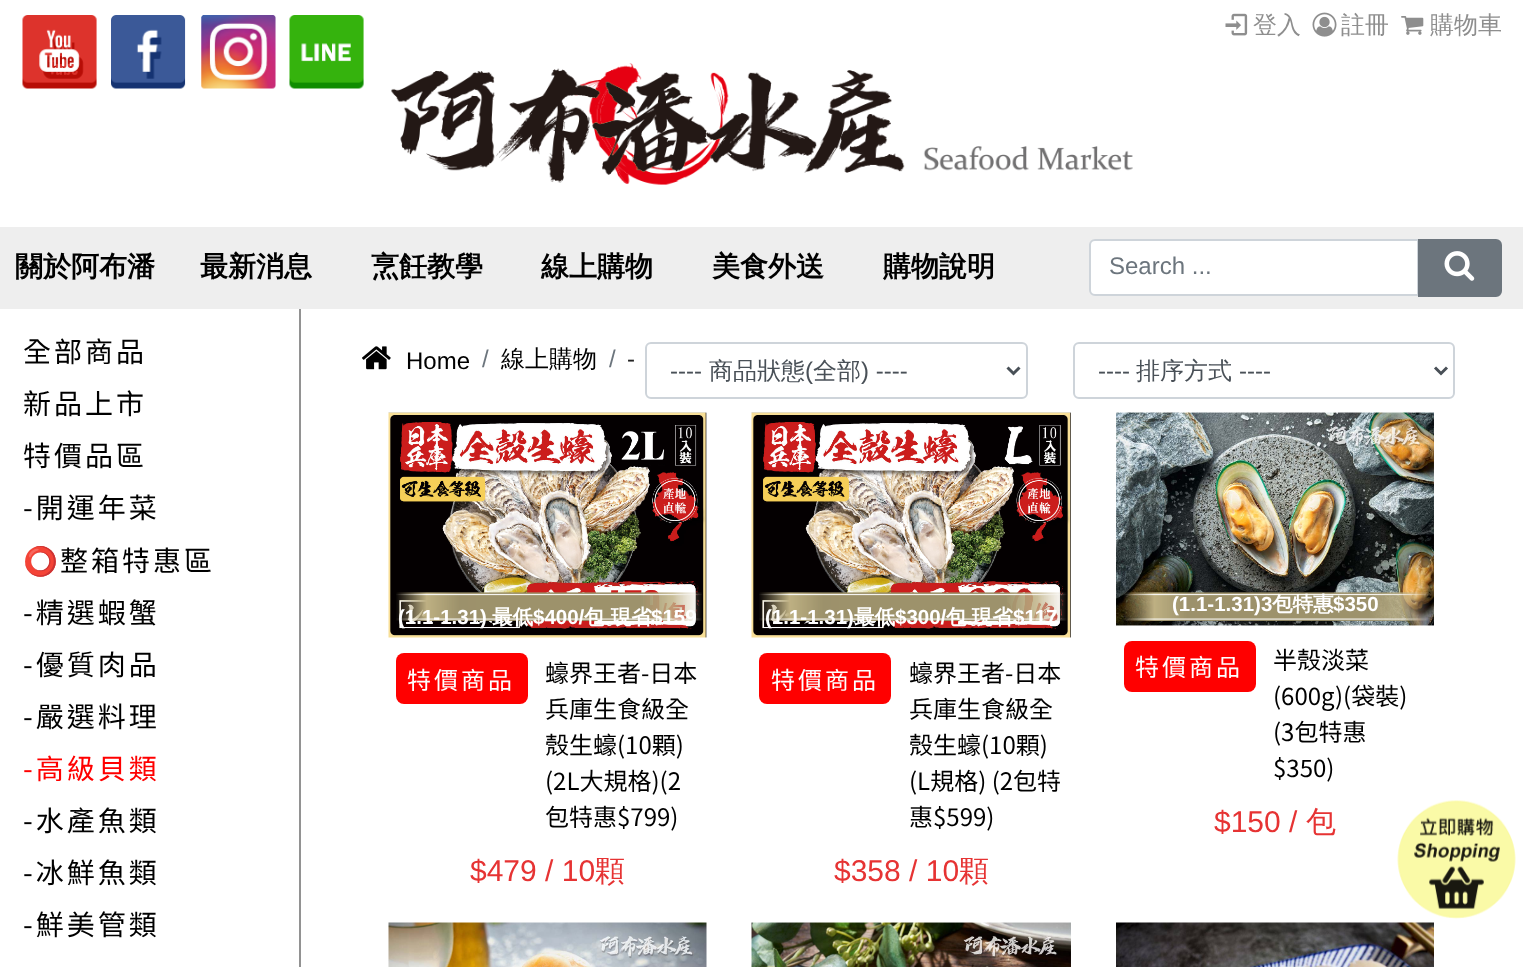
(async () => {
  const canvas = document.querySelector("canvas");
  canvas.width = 1523;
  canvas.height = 967;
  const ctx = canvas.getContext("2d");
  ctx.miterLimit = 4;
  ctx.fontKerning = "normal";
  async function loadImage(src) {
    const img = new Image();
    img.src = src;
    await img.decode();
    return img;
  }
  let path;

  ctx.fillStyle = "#ffffff";
  ctx.fillRect(0, 0, 1523, 967);
  ctx.drawImage(await loadImage("img/1.png"), 22, 15, 75, 74);
  ctx.drawImage(await loadImage("img/2.png"), 111, 15, 75, 74);
  ctx.drawImage(await loadImage("img/3.png"), 201, 15, 75, 74);
  ctx.drawImage(await loadImage("img/4.png"), 289, 15, 75, 74);
  ctx.drawImage(await loadImage("img/5.png"), 1225, 13, 23, 23);
  ctx.drawImage(await loadImage("img/6.png"), 1312, 12, 25, 25);
  ctx.drawImage(await loadImage("img/7.png"), 1401, 16, 23, 19);
  ctx.drawImage(await loadImage("img/8.png"), 391, 63, 742, 122);
  ctx.fillStyle = "#eeeeee";
  ctx.fillRect(0, 227, 1523, 82);
  ctx.fillStyle = "#ffffff";
  ctx.beginPath();
  ctx.roundRect(1090, 240, 328, 55, [5, 0, 0, 5]);
  ctx.fill();
  ctx.strokeStyle = "#ced4da";
  ctx.lineWidth = 2;
  ctx.stroke();
  ctx.fillStyle = "#6c757d";
  ctx.beginPath();
  ctx.roundRect(1419, 240, 82, 56, [0, 5, 5, 0]);
  ctx.fill();
  ctx.strokeStyle = "#6c757d";
  ctx.stroke();
  ctx.drawImage(await loadImage("img/9.png"), 1444, 251, 31, 30);
  ctx.fillStyle = "#929292";
  ctx.fillRect(299, 309, 2, 658);
  ctx.drawImage(await loadImage("img/10.png"), 362, 346, 29, 24);
  ctx.beginPath();
  ctx.roundRect(646, 343, 381, 55, 5);
  ctx.strokeStyle = "#ced4da";
  ctx.stroke();
  path = new Path2D("M1007.5 367.5L1013.5 373.5L1019.5 367.5");
  ctx.strokeStyle = "#495057";
  ctx.lineWidth = 3;
  ctx.stroke(path);
  ctx.beginPath();
  ctx.roundRect(1074, 343, 380, 55, 5);
  ctx.strokeStyle = "#ced4da";
  ctx.lineWidth = 2;
  ctx.stroke();
  path = new Path2D("M1435 367.5L1441 373.5L1447 367.5");
  ctx.strokeStyle = "#495057";
  ctx.lineWidth = 3;
  ctx.stroke(path);
  ctx.drawImage(await loadImage("img/11.png"), 388, 412, 319, 226);
  ctx.drawImage(await loadImage("img/12.png"), 396, 592, 306, 29);
  ctx.fillStyle = "#ff0000";
  ctx.beginPath();
  ctx.roundRect(396, 653, 132, 51, 8);
  ctx.fill();
  ctx.drawImage(await loadImage("img/13.png"), 751, 412, 320, 226);
  ctx.drawImage(await loadImage("img/14.png"), 759, 592, 308, 29);
  ctx.beginPath();
  ctx.roundRect(759, 653, 132, 51, 8);
  ctx.fill();
  ctx.drawImage(await loadImage("img/15.png"), 1116, 412, 318, 214);
  ctx.drawImage(await loadImage("img/16.png"), 1123, 592, 307, 29);
  ctx.beginPath();
  ctx.roundRect(1124, 641, 132, 51, 8);
  ctx.fill();
  ctx.drawImage(await loadImage("img/17.png"), 388, 922, 319, 45);
  ctx.drawImage(await loadImage("img/18.png"), 751, 922, 320, 45);
  ctx.drawImage(await loadImage("img/19.png"), 1116, 922, 318, 45);
  ctx.drawImage(await loadImage("img/20.png"), 1397, 800, 119, 119);
  ctx.font = "500 24px WenQuanYi Zen Hei";
  ctx.fillStyle = "#8e8e8e";
  for (const [text, x, y] of [
    ["登入", 1253, 33],
    ["註冊", 1341, 33],
    ["購物車", 1430, 33],
  ]) {
    ctx.fillText(text, x, y);
  }
  ctx.font = "bold 28px WenQuanYi Zen Hei";
  ctx.fillStyle = "#000000";
  for (const [text, x, y] of [
    ["關於阿布潘", 15, 276],
    ["最新消息", 200, 276],
    ["烹飪教學", 371, 276],
    ["線上購物", 541, 276],
    ["美食外送", 712, 276],
    ["購物說明", 883, 276],
  ]) {
    ctx.fillText(text, x, y);
  }
  ctx.font = "24px Liberation Sans";
  ctx.fillStyle = "#6c757d";
  ctx.fillText("Search ...", 1109, 274);
  ctx.letterSpacing = "3px";
  ctx.font = "100 28px Noto Sans TC";
  ctx.fillStyle = "#000000";
  for (const [text, x, y] of [
    ["全部商品", 23, 362],
    ["新品上市", 23, 414],
    ["特價品區", 23, 466],
    ["-開運年菜", 23, 518],
  ]) {
    ctx.fillText(text, x, y);
  }
  ctx.font = "28px Noto Color Emoji";
  ctx.fillText("⭕", 23, 571);
  ctx.font = "100 28px Noto Sans TC";
  for (const [text, x, y] of [
    ["整箱特惠區", 60, 571],
    ["-精選蝦蟹", 23, 623],
    ["-優質肉品", 23, 675],
    ["-嚴選料理", 23, 727],
  ]) {
    ctx.fillText(text, x, y);
  }
  ctx.fillStyle = "#ff0000";
  ctx.fillText("-高級貝類", 23, 779);
  ctx.fillStyle = "#000000";
  for (const [text, x, y] of [
    ["-水產魚類", 23, 831],
    ["-冰鮮魚類", 23, 883],
    ["-鮮美管類", 23, 935],
  ]) {
    ctx.fillText(text, x, y);
  }
  ctx.letterSpacing = "0px";
  ctx.font = "24px Liberation Sans";
  ctx.fillText("Home", 406, 369);
  ctx.fillStyle = "#6c757d";
  ctx.fillText("/", 482, 367);
  ctx.font = "500 24px WenQuanYi Zen Hei";
  ctx.fillStyle = "#000000";
  ctx.fillText("線上購物", 501, 367);
  ctx.font = "24px Liberation Sans";
  ctx.fillStyle = "#6c757d";
  ctx.fillText("/", 609, 367);
  ctx.fillStyle = "#222222";
  ctx.fillText("-", 627, 367);
  ctx.fillStyle = "#495057";
  ctx.fillText("----", 670, 379);
  ctx.font = "500 24px WenQuanYi Zen Hei";
  ctx.fillText("商品狀態", 709, 379);
  ctx.font = "24px Liberation Sans";
  ctx.fillText("(", 805, 379);
  ctx.font = "500 24px WenQuanYi Zen Hei";
  ctx.fillText("全部", 813, 379);
  ctx.font = "24px Liberation Sans";
  ctx.fillText(") ----", 861, 379);
  ctx.fillText("----", 1098, 379);
  ctx.font = "500 24px WenQuanYi Zen Hei";
  ctx.fillText("排序方式", 1136, 379);
  ctx.font = "24px Liberation Sans";
  ctx.fillText("----", 1239, 379);
  ctx.font = "bold 20.5px Liberation Sans";
  ctx.fillStyle = "#ffffff";
  ctx.fillText("(1.1-1.31)", 398, 624);
  ctx.font = "bold 20.5px WenQuanYi Zen Hei";
  ctx.fillText("最低", 492, 624);
  ctx.font = "bold 20.5px Liberation Sans";
  ctx.fillText("$400/", 533, 624);
  ctx.font = "bold 20.5px WenQuanYi Zen Hei";
  ctx.fillText("包 現省", 584, 624);
  ctx.font = "bold 20.5px Liberation Sans";
  ctx.fillText("$159", 651, 624);
  ctx.letterSpacing = "3px";
  ctx.font = "100 24px Noto Sans TC";
  ctx.fillText("特價商品", 407, 689);
  ctx.letterSpacing = "0px";
  ctx.fillStyle = "#000000";
  for (const [text, x, y] of [
    ["蠔界王者-日本", 545, 682],
    ["兵庫生食級全", 545, 718],
    ["殼生蠔(10顆)", 545, 754],
    ["(2L大規格)(2", 545, 790],
    ["包特惠$799)", 545, 826],
  ]) {
    ctx.fillText(text, x, y);
  }
  ctx.font = "30px Liberation Sans";
  ctx.fillStyle = "#e63333";
  ctx.fillText("$479 / 10", 470, 881);
  ctx.font = "500 30px WenQuanYi Zen Hei";
  ctx.fillText("顆", 595, 881);
  ctx.font = "bold 20.5px Liberation Sans";
  ctx.fillStyle = "#ffffff";
  ctx.fillText("(1.1-1.31)", 765, 624);
  ctx.font = "bold 20.5px WenQuanYi Zen Hei";
  ctx.fillText("最低", 854, 624);
  ctx.font = "bold 20.5px Liberation Sans";
  ctx.fillText("$300/", 895, 624);
  ctx.wordSpacing = "-1px";
  ctx.font = "bold 20.5px WenQuanYi Zen Hei";
  ctx.fillText("包 現省", 946, 624);
  ctx.wordSpacing = "0px";
  ctx.font = "bold 20.5px Liberation Sans";
  ctx.fillText("$117", 1013, 624);
  ctx.letterSpacing = "3px";
  ctx.font = "100 24px Noto Sans TC";
  ctx.fillText("特價商品", 771, 689);
  ctx.letterSpacing = "0px";
  ctx.fillStyle = "#000000";
  for (const [text, x, y] of [
    ["蠔界王者-日本", 909, 682],
    ["兵庫生食級全", 909, 718],
    ["殼生蠔(10顆)", 909, 754],
    ["(L規格) (2包特", 909, 790],
    ["惠$599)", 909, 826],
  ]) {
    ctx.fillText(text, x, y);
  }
  ctx.font = "30px Liberation Sans";
  ctx.fillStyle = "#e63333";
  ctx.fillText("$358 / 10", 834, 881);
  ctx.font = "500 30px WenQuanYi Zen Hei";
  ctx.fillText("顆", 959, 881);
  ctx.font = "bold 20.5px Liberation Sans";
  ctx.fillStyle = "#ffffff";
  ctx.fillText("(1.1-1.31)3", 1172, 611);
  ctx.font = "bold 20.5px WenQuanYi Zen Hei";
  ctx.fillText("包特惠", 1272, 611);
  ctx.font = "bold 20.5px Liberation Sans";
  ctx.fillText("$350", 1333, 611);
  ctx.letterSpacing = "3px";
  ctx.font = "100 24px Noto Sans TC";
  ctx.fillText("特價商品", 1135, 676);
  ctx.letterSpacing = "0px";
  ctx.fillStyle = "#000000";
  for (const [text, x, y] of [
    ["半殼淡菜", 1273, 669],
    ["(600g)(袋裝)", 1273, 705],
    ["(3包特惠", 1273, 741],
    ["$350)", 1273, 777],
  ]) {
    ctx.fillText(text, x, y);
  }
  ctx.font = "30px Liberation Sans";
  ctx.fillStyle = "#e63333";
  ctx.fillText("$150 /", 1214, 832);
  ctx.font = "500 30px WenQuanYi Zen Hei";
  ctx.fillText("包", 1306, 832);
})();
